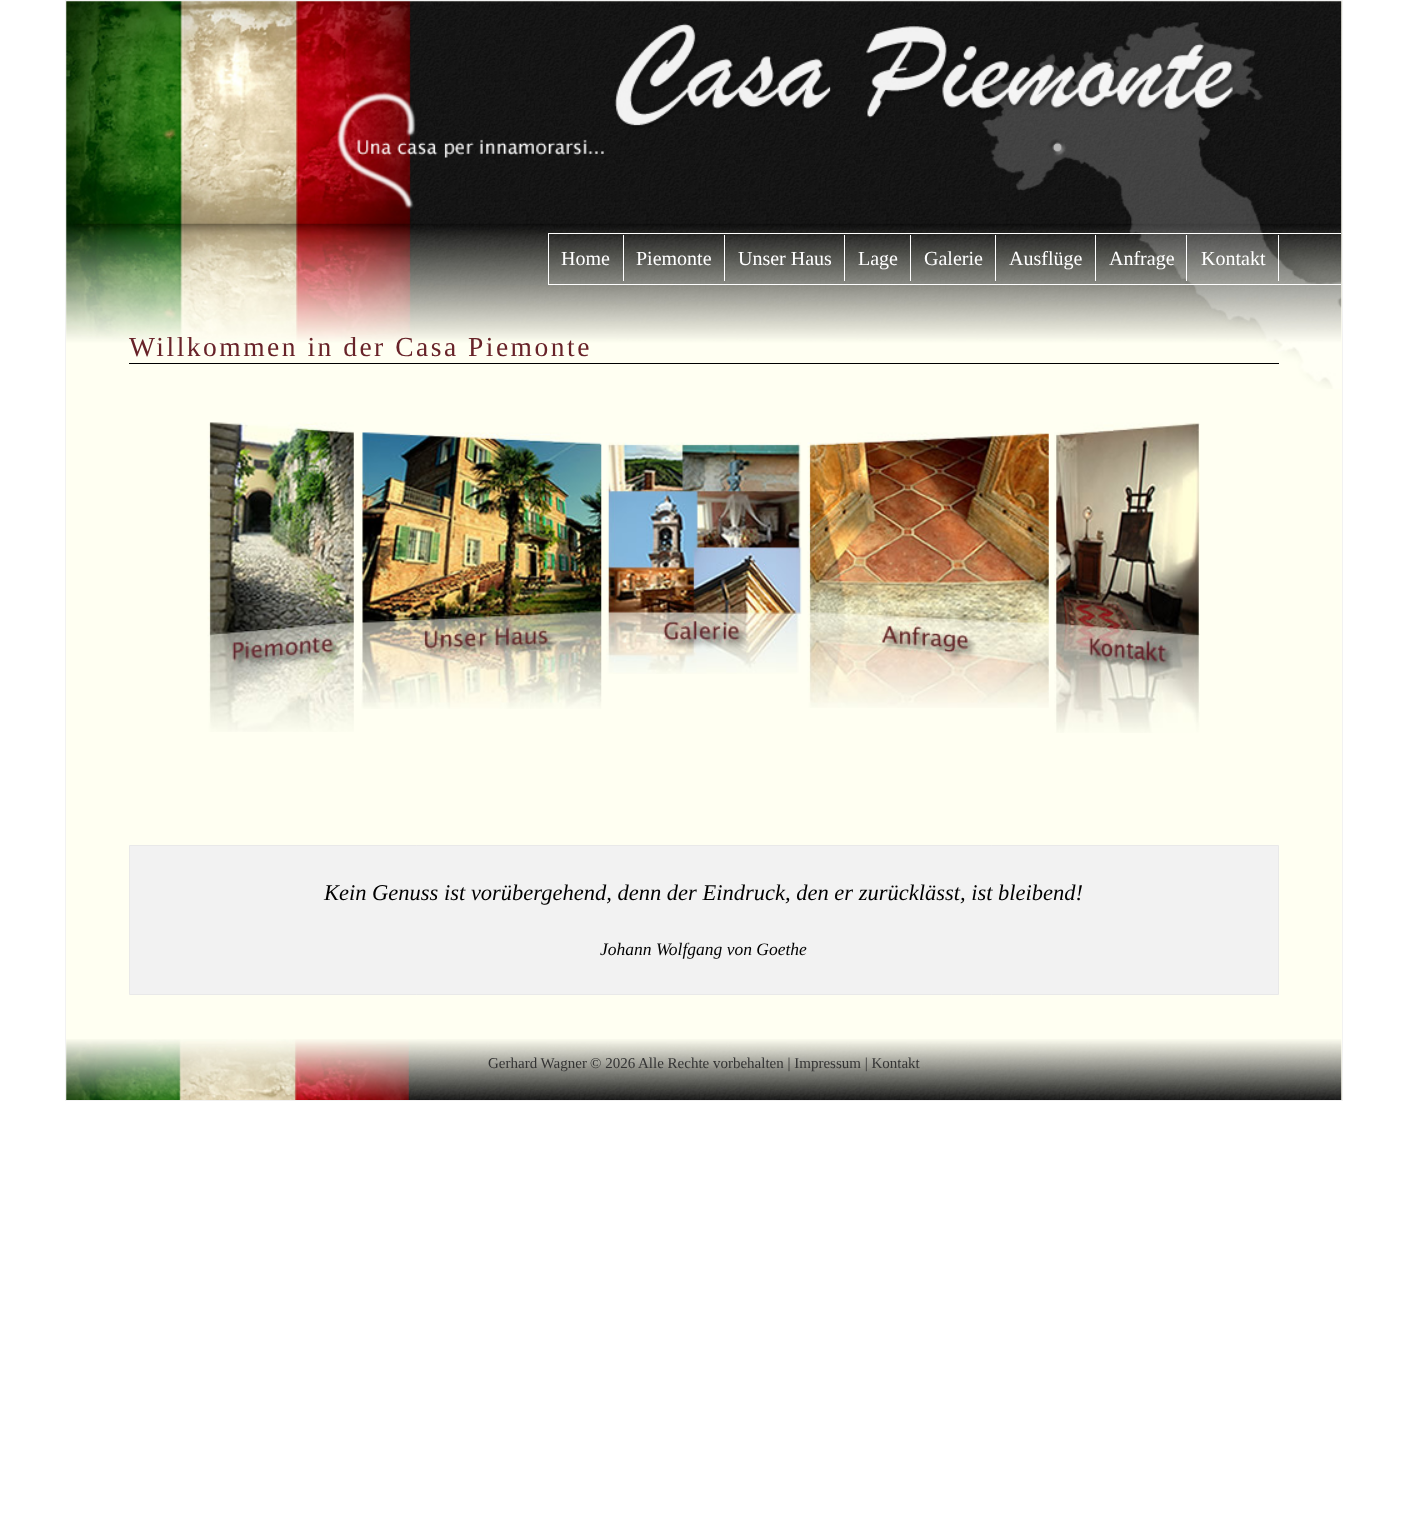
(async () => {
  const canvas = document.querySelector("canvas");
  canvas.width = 1404;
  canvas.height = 1537;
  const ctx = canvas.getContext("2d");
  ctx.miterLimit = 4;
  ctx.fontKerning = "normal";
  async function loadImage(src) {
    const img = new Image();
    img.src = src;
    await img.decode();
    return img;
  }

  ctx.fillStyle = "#ffffff";
  ctx.fillRect(0, 0, 1404, 1537);
  ctx.fillStyle = "#fffff2";
  ctx.fillRect(66, 1, 1276, 1099);
  ctx.drawImage(await loadImage("img/1.png"), 66, 1, 1276, 388);
  ctx.strokeStyle = "#f2f2f2";
  ctx.strokeRect(65.5, 0.5, 1277, 1100);
  for (const [x, y, w, h, color] of [
    [548, 233, 793, 1, "#ffffff"],
    [548, 284, 793, 1, "#ffffff"],
    [548, 233, 1, 52, "#ffffff"],
    [623, 235, 1, 46, "#ffffff"],
    [724, 235, 1, 46, "#ffffff"],
    [844, 235, 1, 46, "#ffffff"],
    [910, 235, 1, 46, "#ffffff"],
    [995, 235, 1, 46, "#ffffff"],
    [1095, 235, 1, 46, "#ffffff"],
    [1186, 235, 1, 46, "#ffffff"],
    [1278, 235, 1, 46, "#ffffff"],
    [129, 363, 1150, 1, "#000000"],
  ]) {
    ctx.fillStyle = color;
    ctx.fillRect(x, y, w, h);
  }
  ctx.drawImage(await loadImage("img/2.png"), 207, 422, 147, 310);
  ctx.drawImage(await loadImage("img/3.png"), 360, 432, 242, 277);
  ctx.drawImage(await loadImage("img/4.png"), 606, 442, 196, 232);
  ctx.drawImage(await loadImage("img/5.png"), 807, 432, 242, 276);
  ctx.drawImage(await loadImage("img/6.png"), 1054, 422, 146, 311);
  ctx.fillStyle = "#f2f2f2";
  ctx.beginPath();
  ctx.rect(129.5, 845.5, 1149, 149);
  ctx.fill();
  ctx.strokeStyle = "#e9e9e9";
  ctx.stroke();
  ctx.drawImage(await loadImage("img/7.png"), 66, 1039, 1276, 61);
  ctx.font = "20px Liberation Serif";
  ctx.fillStyle = "#ffffff";
  for (const [text, x, y] of [
    ["Home", 561, 265],
    ["Piemonte", 636, 265],
    ["Unser Haus", 738, 265],
    ["Lage", 858, 265],
    ["Galerie", 924, 265],
    ["Ausflüge", 1009, 265],
    ["Anfrage", 1109, 265],
    ["Kontakt", 1201, 265],
  ]) {
    ctx.fillText(text, x, y);
  }
  ctx.letterSpacing = "2.5px";
  ctx.font = "27.5px Liberation Serif";
  ctx.fillStyle = "#682329";
  ctx.fillText("Willkommen in der Casa Piemonte", 129, 356);
  ctx.letterSpacing = "0px";
  ctx.font = "italic 22.5px Liberation Serif";
  ctx.fillStyle = "#000000";
  ctx.fillText("Kein Genuss ist vorübergehend, denn der Eindruck, den er zurücklässt, ist bleibend!", 324, 900);
  ctx.font = "italic 17.5px Liberation Serif";
  ctx.fillText("Johann Wolfgang von Goethe", 600, 955);
  ctx.font = "15px Liberation Serif";
  ctx.fillStyle = "#333333";
  for (const [text, x, y] of [
    ["Gerhard Wagner", 488, 1068],
    ["© 2026", 590, 1068],
    ["Alle Rechte vorbehalten | Impressum | Kontakt", 638, 1068],
  ]) {
    ctx.fillText(text, x, y);
  }
})();
